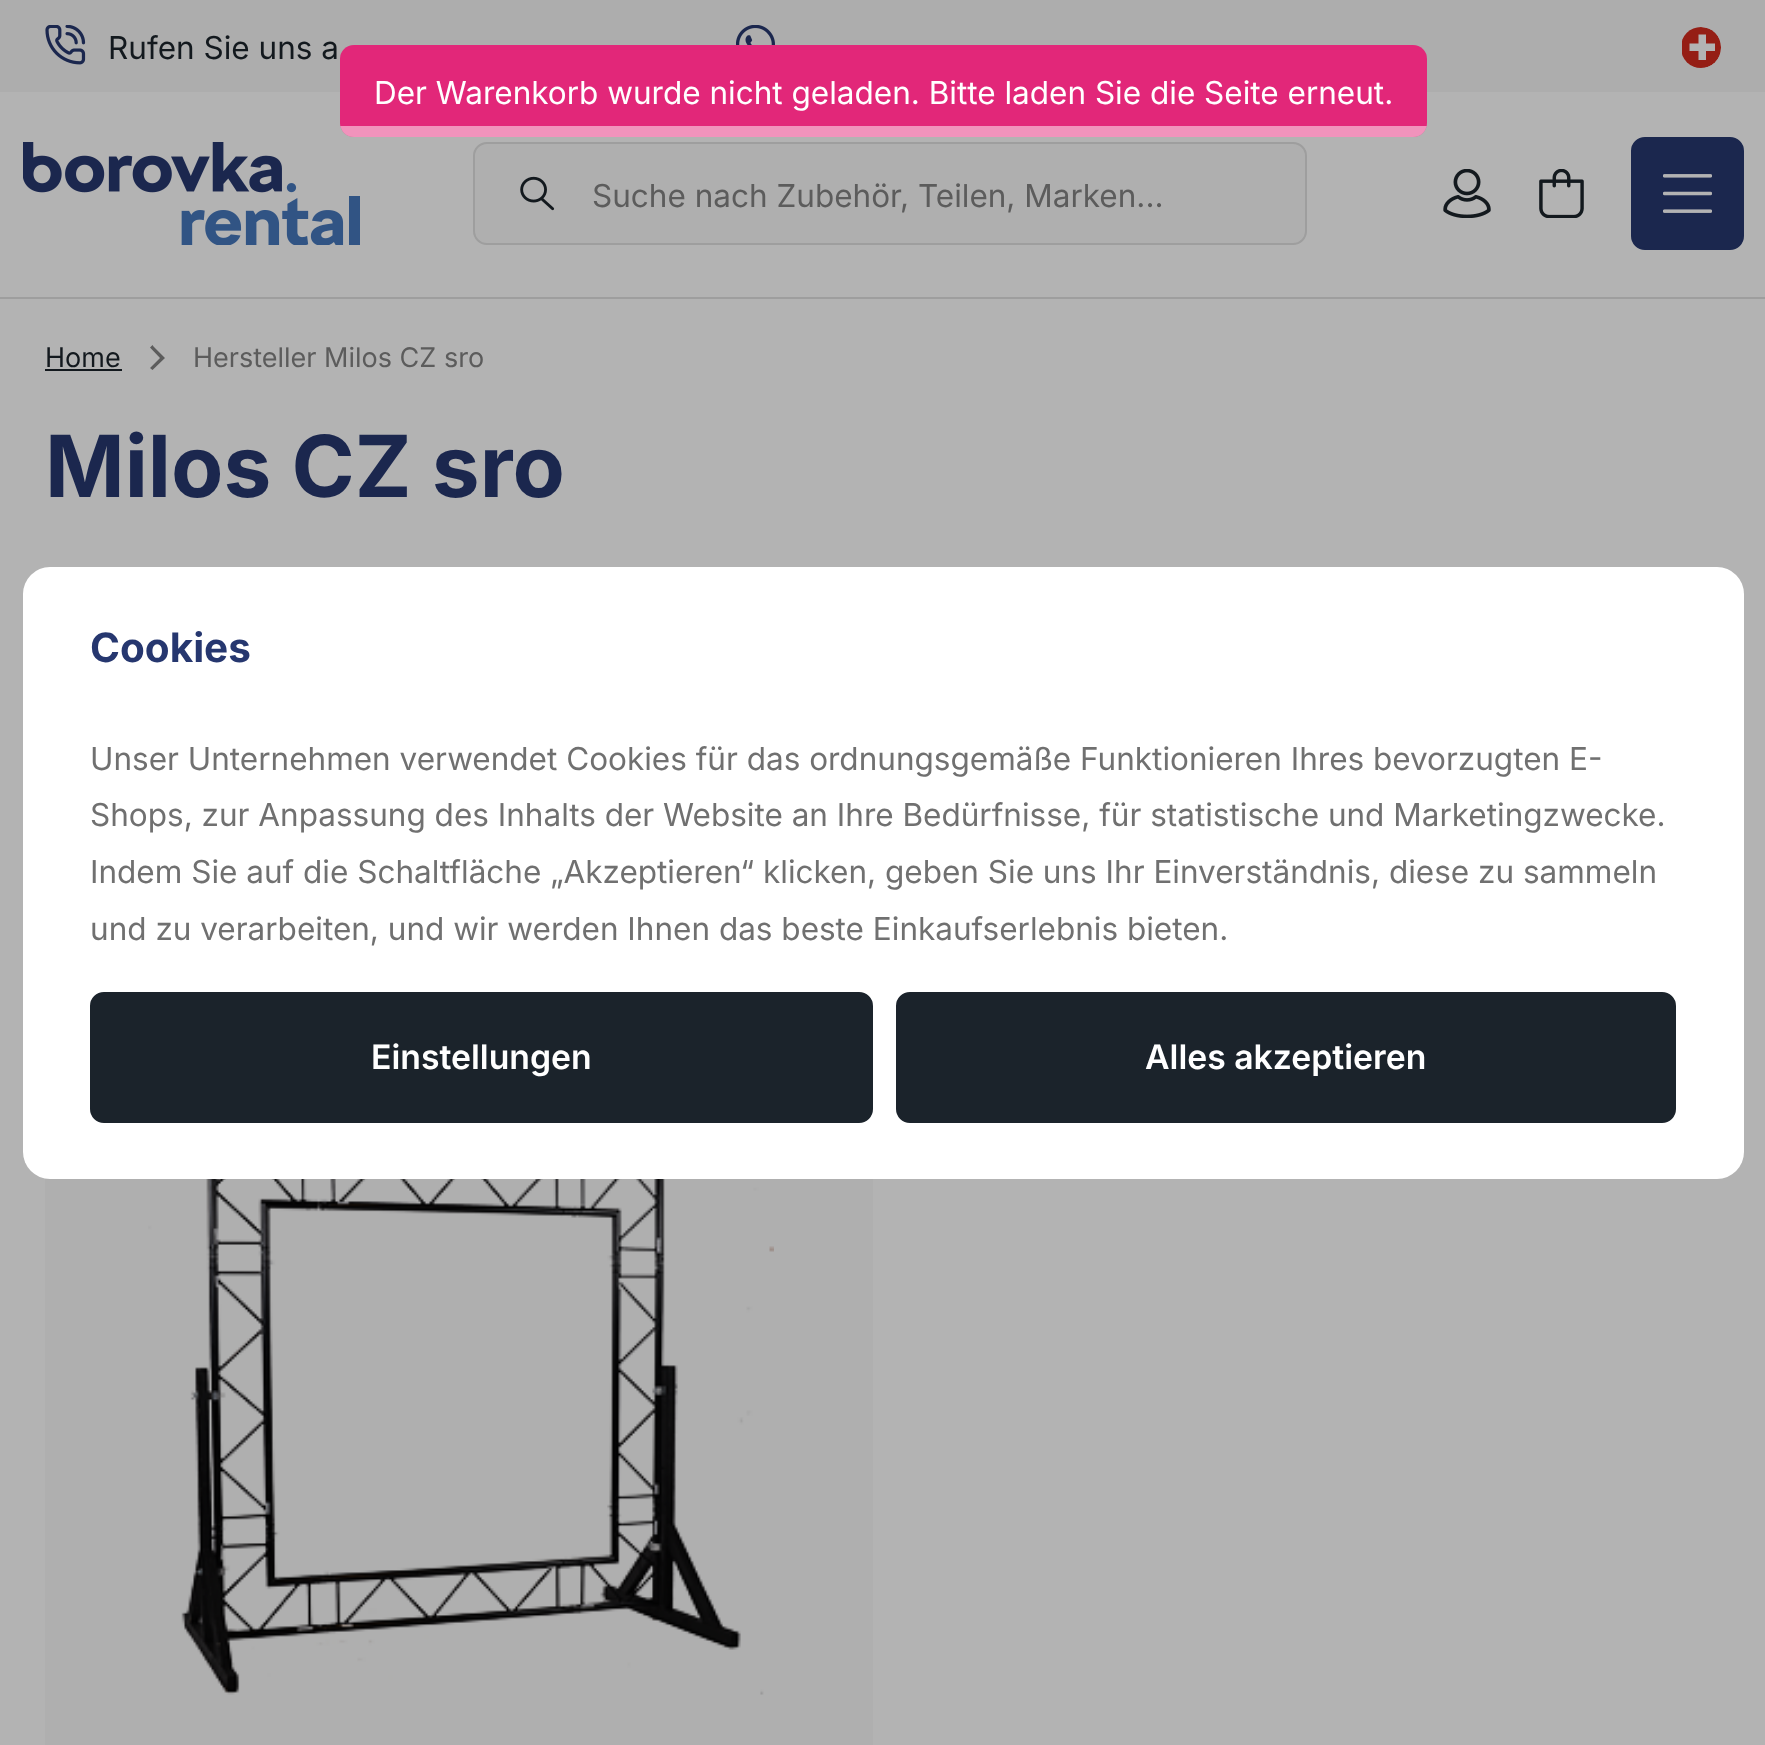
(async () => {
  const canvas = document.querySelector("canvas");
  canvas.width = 1765;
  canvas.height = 1745;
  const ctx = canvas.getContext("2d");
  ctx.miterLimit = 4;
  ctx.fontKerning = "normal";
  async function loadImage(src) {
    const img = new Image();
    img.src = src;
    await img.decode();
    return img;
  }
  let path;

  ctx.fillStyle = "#b3b3b3";
  ctx.fillRect(0, 0, 1765, 1745);
  ctx.fillStyle = "#9e9e9e";
  ctx.fillRect(0, 297, 1765, 2);
  ctx.fillStyle = "#adadad";
  ctx.fillRect(0, 0, 1765, 92);
  ctx.drawImage(await loadImage("img/1.png"), 45, 25, 41, 40);
  ctx.drawImage(await loadImage("img/2.png"), 736, 25, 39, 20);
  ctx.save();
  ctx.beginPath();
  ctx.roundRect(1681, 27, 40, 41, 20);
  ctx.clip();
  ctx.fillStyle = "#951e15";
  ctx.beginPath();
  ctx.roundRect(1682, 27, 39, 41, [0, 20, 20, 0]);
  ctx.fill();
  ctx.restore();
  ctx.fillStyle = "#b3b3b3";
  path = new Path2D("M1715 43.5H1706V34.5H1698.5V43.5H1689.5V51H1698.5V60H1706V51H1715Z");
  ctx.fill(path);
  ctx.drawImage(await loadImage("img/3.png"), 23, 142, 337, 103);
  ctx.fillStyle = "#afafaf";
  ctx.beginPath();
  ctx.roundRect(474, 143, 832, 101, 13);
  ctx.fill();
  ctx.strokeStyle = "#9e9e9e";
  ctx.lineWidth = 2;
  ctx.stroke();
  ctx.drawImage(await loadImage("img/4.png"), 520, 176, 35, 35);
  ctx.drawImage(await loadImage("img/5.png"), 1443, 169, 48, 49);
  ctx.drawImage(await loadImage("img/6.png"), 1539, 169, 45, 49);
  ctx.fillStyle = "#1b274e";
  ctx.beginPath();
  ctx.roundRect(1632, 138, 111, 111, 13);
  ctx.fill();
  ctx.strokeStyle = "#1b274e";
  ctx.stroke();
  ctx.drawImage(await loadImage("img/7.png"), 1663, 174, 49, 39);
  ctx.fillStyle = "#e22779";
  ctx.beginPath();
  ctx.roundRect(340, 45, 1087, 92, 14);
  ctx.fill();
  ctx.save();
  ctx.beginPath();
  ctx.roundRect(340, 45, 1087, 92, 14);
  ctx.clip();
  ctx.fillStyle = "rgba(255, 255, 255, 0.5)";
  ctx.fillRect(340, 126, 1087, 11);
  ctx.restore();
  ctx.fillStyle = "#13191e";
  ctx.fillRect(45, 369, 77, 2);
  ctx.fillStyle = "#5c5c5c";
  path = new Path2D("M153.5 346.5L165 358L152.5 370L150 368L160 358L150 347.5L152.5 345Z");
  ctx.fill(path);
  ctx.drawImage(await loadImage("img/8.png"), 148, 1179, 626, 516);
  ctx.fillStyle = "rgba(74, 74, 74, 0.03)";
  ctx.fillRect(45, 1178, 828, 567);
  ctx.fillStyle = "#ffffff";
  ctx.beginPath();
  ctx.roundRect(23, 567, 1721, 612, 27);
  ctx.fill();
  ctx.fillStyle = "#1b232b";
  ctx.beginPath();
  ctx.roundRect(91, 993, 781, 129, 13);
  ctx.fill();
  ctx.strokeStyle = "#1b232b";
  ctx.stroke();
  ctx.beginPath();
  ctx.roundRect(897, 993, 778, 129, 13);
  ctx.fill();
  ctx.stroke();
  ctx.font = "31.5px Inter";
  ctx.fillStyle = "#13191e";
  ctx.fillText("Rufen Sie uns a", 108, 59);
  ctx.fillStyle = "#5c5c5c";
  ctx.fillText("Suche nach Zubehör, Teilen, Marken...", 592, 207);
  ctx.fillStyle = "#ffffff";
  ctx.fillText("Der Warenkorb wurde nicht geladen. Bitte laden Sie die Seite erneut.", 374, 104);
  ctx.font = "27px Inter";
  ctx.fillStyle = "#13191e";
  ctx.fillText("Home", 45, 367);
  ctx.fillStyle = "#5c5c5c";
  ctx.fillText("Hersteller Milos CZ sro", 193, 367);
  ctx.font = "bold 85.5px Inter";
  ctx.fillStyle = "#1b274e";
  ctx.fillText("Milos CZ sro", 45, 497);
  ctx.font = "bold 40.5px Inter";
  ctx.fillStyle = "#26376f";
  ctx.fillText("Cookies", 90, 662);
  ctx.font = "31.5px Inter";
  ctx.fillStyle = "#707070";
  for (const [text, x, y] of [
    ["Unser Unternehmen verwendet Cookies für das ordnungsgemäße Funktionieren Ihres bevorzugten E-", 90, 770],
    ["Shops, zur Anpassung des Inhalts der Website an Ihre Bedürfnisse, für statistische und Marketingzwecke.", 90, 826],
    ["Indem Sie auf die Schaltfläche „Akzeptieren“ klicken, geben Sie uns Ihr Einverständnis, diese zu sammeln", 90, 883],
    ["und zu verarbeiten, und wir werden Ihnen das beste Einkaufserlebnis bieten.", 90, 940],
  ]) {
    ctx.fillText(text, x, y);
  }
  ctx.font = "600 33.75px Inter";
  ctx.fillStyle = "#ffffff";
  ctx.fillText("Einstellungen", 371, 1069);
  ctx.fillText("Alles akzeptieren", 1145, 1069);
})();
